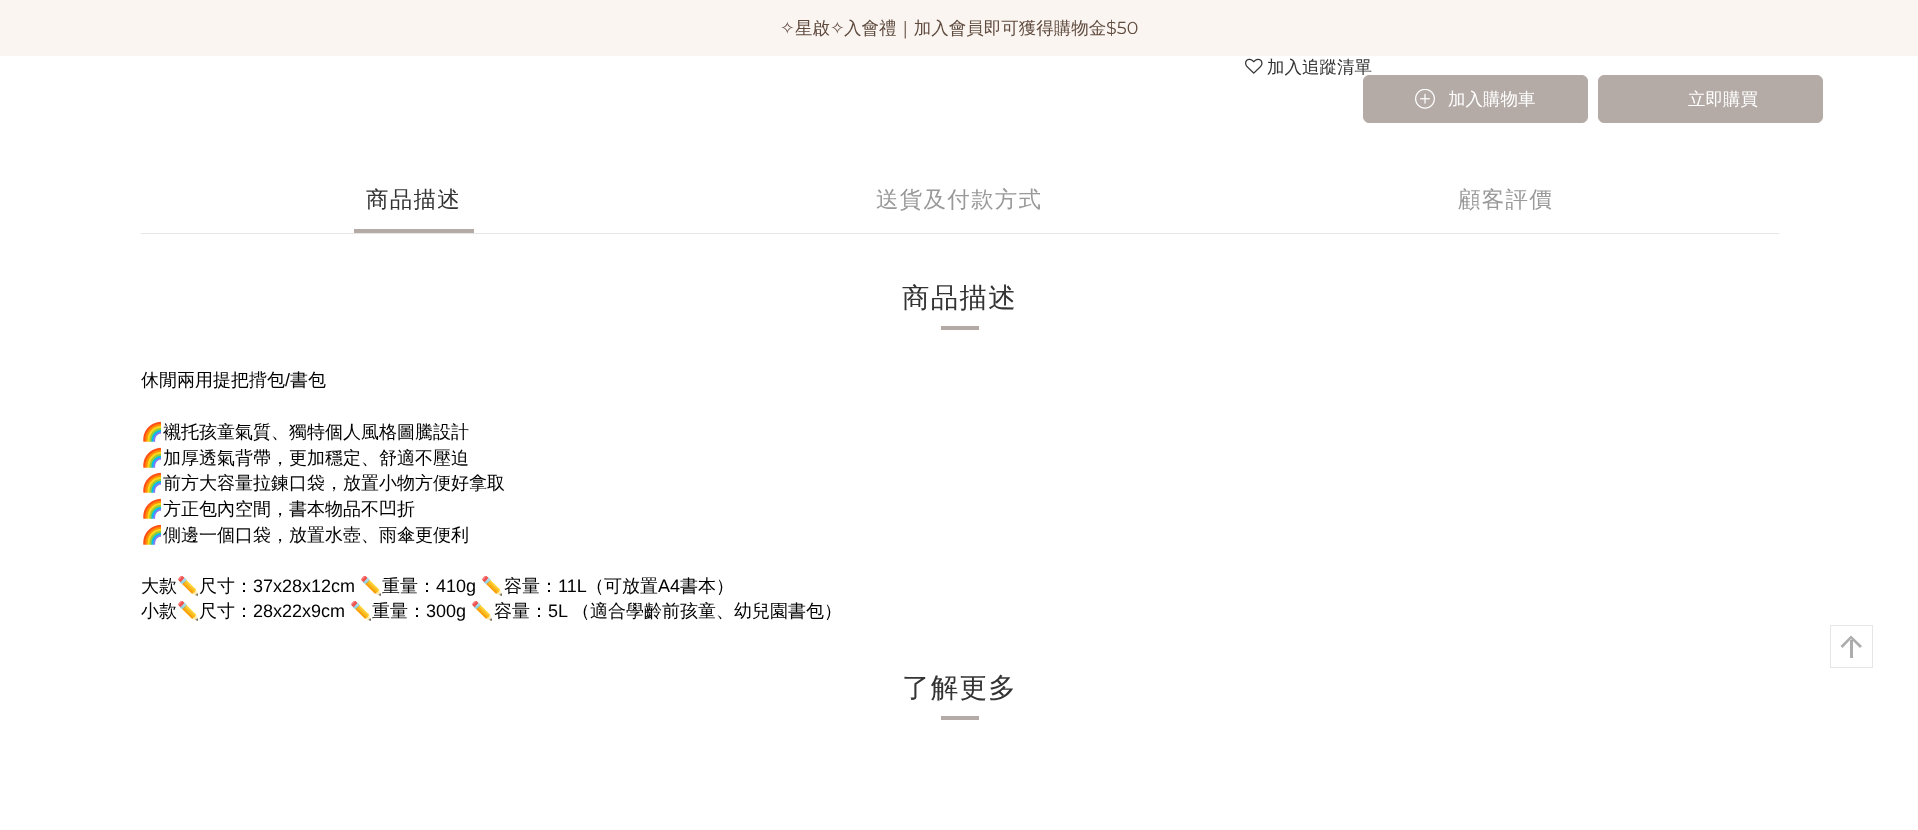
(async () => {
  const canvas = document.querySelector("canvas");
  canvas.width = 1918;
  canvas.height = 830;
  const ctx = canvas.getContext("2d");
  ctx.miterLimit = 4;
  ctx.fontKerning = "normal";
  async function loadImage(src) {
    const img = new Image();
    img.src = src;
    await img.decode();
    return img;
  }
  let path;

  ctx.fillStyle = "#ffffff";
  ctx.fillRect(0, 0, 1918, 830);
  ctx.fillStyle = "#fbf5f2";
  ctx.fillRect(0, 0, 1918, 56);
  ctx.drawImage(await loadImage("img/1.png"), 1245, 58, 18, 16);
  for (const [x, y, w, h, color] of [
    [141, 233, 1638, 1, "#e6e6e6"],
    [354, 229, 120, 4, "#b4aba7"],
    [941, 326, 38, 4, "#b4aba7"],
    [941, 716, 38, 4, "#b4aba7"],
  ]) {
    ctx.fillStyle = color;
    ctx.fillRect(x, y, w, h);
  }
  ctx.beginPath();
  ctx.roundRect(1598.5, 75.5, 224, 47, 5.5);
  ctx.fill();
  ctx.strokeStyle = "#b4aba7";
  ctx.stroke();
  ctx.strokeStyle = "#e6e6e6";
  ctx.strokeRect(1830.5, 625.5, 42, 42);
  ctx.fillStyle = "#adadad";
  path = new Path2D("M1851 635.5L1862 646L1860 648L1851 639ZM1840.5 646L1851 635.5V639L1842.5 648Z");
  ctx.fill(path);
  ctx.fillStyle = "rgba(153, 153, 153, 0.8)";
  ctx.fillRect(1850, 640, 3, 18);
  ctx.font = "17.5px DejaVu Sans";
  ctx.fillStyle = "#604c3f";
  ctx.fillText("✧", 780, 34);
  ctx.font = "500 17.5px WenQuanYi Zen Hei";
  ctx.fillText("星啟", 795, 34);
  ctx.font = "17.5px DejaVu Sans";
  ctx.fillText("✧", 830, 34);
  ctx.font = "500 17.5px WenQuanYi Zen Hei";
  ctx.fillText("入會禮｜加入會員即可獲得購物金", 844, 34);
  ctx.font = "17.5px Montserrat";
  ctx.fillText("$50", 1106, 34);
  ctx.font = "500 17.5px WenQuanYi Zen Hei";
  ctx.fillStyle = "#333333";
  ctx.fillText("加入追蹤清單", 1267, 73);
  ctx.letterSpacing = "1.25px";
  ctx.font = "500 22.5px WenQuanYi Zen Hei";
  ctx.fillText("商品描述", 366, 207);
  ctx.fillStyle = "#999999";
  ctx.fillText("送貨及付款方式", 876, 207);
  ctx.fillText("顧客評價", 1458, 207);
  ctx.font = "500 27.5px WenQuanYi Zen Hei";
  ctx.fillStyle = "#333333";
  ctx.fillText("商品描述", 902, 307);
  ctx.letterSpacing = "0px";
  ctx.font = "500 18px WenQuanYi Zen Hei";
  ctx.fillStyle = "#000000";
  ctx.fillText("休閒兩用提把揹包", 141, 386);
  ctx.font = "18px Liberation Sans";
  ctx.fillText("/", 285, 386);
  ctx.font = "500 18px WenQuanYi Zen Hei";
  ctx.fillText("書包", 290, 386);
  ctx.font = "18px Noto Color Emoji";
  ctx.fillStyle = "#747373";
  ctx.fillText("🌈", 141, 438);
  ctx.font = "500 18px WenQuanYi Zen Hei";
  ctx.fillStyle = "#000000";
  ctx.fillText("襯托孩童氣質、獨特個人風格圖騰設計", 163, 438);
  ctx.font = "18px Noto Color Emoji";
  ctx.fillStyle = "#747373";
  ctx.fillText("🌈", 141, 464);
  ctx.font = "500 18px WenQuanYi Zen Hei";
  ctx.fillStyle = "#000000";
  ctx.fillText("加厚透氣背帶，更加穩定、舒適不壓迫", 163, 464);
  ctx.font = "18px Noto Color Emoji";
  ctx.fillStyle = "#747373";
  ctx.fillText("🌈", 141, 489);
  ctx.font = "500 18px WenQuanYi Zen Hei";
  ctx.fillStyle = "#000000";
  ctx.fillText("前方大容量拉鍊口袋，放置小物方便好拿取", 163, 489);
  ctx.font = "18px Noto Color Emoji";
  ctx.fillStyle = "#747373";
  ctx.fillText("🌈", 141, 515);
  ctx.font = "500 18px WenQuanYi Zen Hei";
  ctx.fillStyle = "#000000";
  ctx.fillText("方正包內空間，書本物品不凹折", 163, 515);
  ctx.font = "18px Noto Color Emoji";
  ctx.fillStyle = "#747373";
  ctx.fillText("🌈", 141, 541);
  ctx.font = "500 18px WenQuanYi Zen Hei";
  ctx.fillStyle = "#000000";
  ctx.fillText("側邊一個口袋，放置水壺、雨傘更便利", 163, 541);
  ctx.fillText("大款", 141, 592);
  ctx.font = "18px Noto Color Emoji";
  ctx.fillText("✏️", 177, 592);
  ctx.font = "500 18px WenQuanYi Zen Hei";
  ctx.fillText("尺寸：", 199, 592);
  ctx.font = "18px Liberation Sans";
  ctx.fillText("37x28x12cm", 253, 592);
  ctx.font = "18px Noto Color Emoji";
  ctx.fillText("✏️", 360, 592);
  ctx.font = "500 18px WenQuanYi Zen Hei";
  ctx.fillText("重量：", 382, 592);
  ctx.font = "18px Liberation Sans";
  ctx.fillText("410g", 436, 592);
  ctx.font = "18px Noto Color Emoji";
  ctx.fillText("✏️", 481, 592);
  ctx.font = "500 18px WenQuanYi Zen Hei";
  ctx.fillText("容量：", 504, 592);
  ctx.font = "18px Liberation Sans";
  ctx.fillText("11L", 558, 592);
  ctx.font = "500 18px WenQuanYi Zen Hei";
  ctx.fillText("（可放置", 586, 592);
  ctx.font = "18px Liberation Sans";
  ctx.fillText("A4", 658, 592);
  ctx.font = "500 18px WenQuanYi Zen Hei";
  ctx.fillText("書本）", 680, 592);
  ctx.fillText("小款", 141, 617);
  ctx.font = "18px Noto Color Emoji";
  ctx.fillText("✏️", 177, 617);
  ctx.font = "500 18px WenQuanYi Zen Hei";
  ctx.fillText("尺寸：", 199, 617);
  ctx.font = "18px Liberation Sans";
  ctx.fillText("28x22x9cm", 253, 617);
  ctx.font = "18px Noto Color Emoji";
  ctx.fillText("✏️", 350, 617);
  ctx.font = "500 18px WenQuanYi Zen Hei";
  ctx.fillText("重量：", 372, 617);
  ctx.font = "18px Liberation Sans";
  ctx.fillText("300g", 426, 617);
  ctx.font = "18px Noto Color Emoji";
  ctx.fillText("✏️", 471, 617);
  ctx.font = "500 18px WenQuanYi Zen Hei";
  ctx.fillText("容量：", 494, 617);
  ctx.font = "18px Liberation Sans";
  ctx.fillText("5L", 548, 617);
  ctx.font = "500 18px WenQuanYi Zen Hei";
  ctx.fillText("（適合學齡前孩童、幼兒園書包）", 572, 617);
  ctx.letterSpacing = "1.25px";
  ctx.font = "500 27.5px WenQuanYi Zen Hei";
  ctx.fillStyle = "#333333";
  ctx.fillText("了解更多", 902, 697);
  ctx.fillStyle = "#b4aba7";
  ctx.beginPath();
  ctx.roundRect(1363.5, 75.5, 224, 47, 5.5);
  ctx.fill();
  ctx.strokeStyle = "#b4aba7";
  ctx.stroke();
  ctx.drawImage(await loadImage("img/2.png"), 1415, 89, 20, 20);
  ctx.letterSpacing = "0px";
  ctx.font = "500 17.5px WenQuanYi Zen Hei";
  ctx.fillStyle = "#ffffff";
  ctx.fillText("加入購物車", 1448, 105);
  ctx.fillText("立即購買", 1688, 105);
})();
